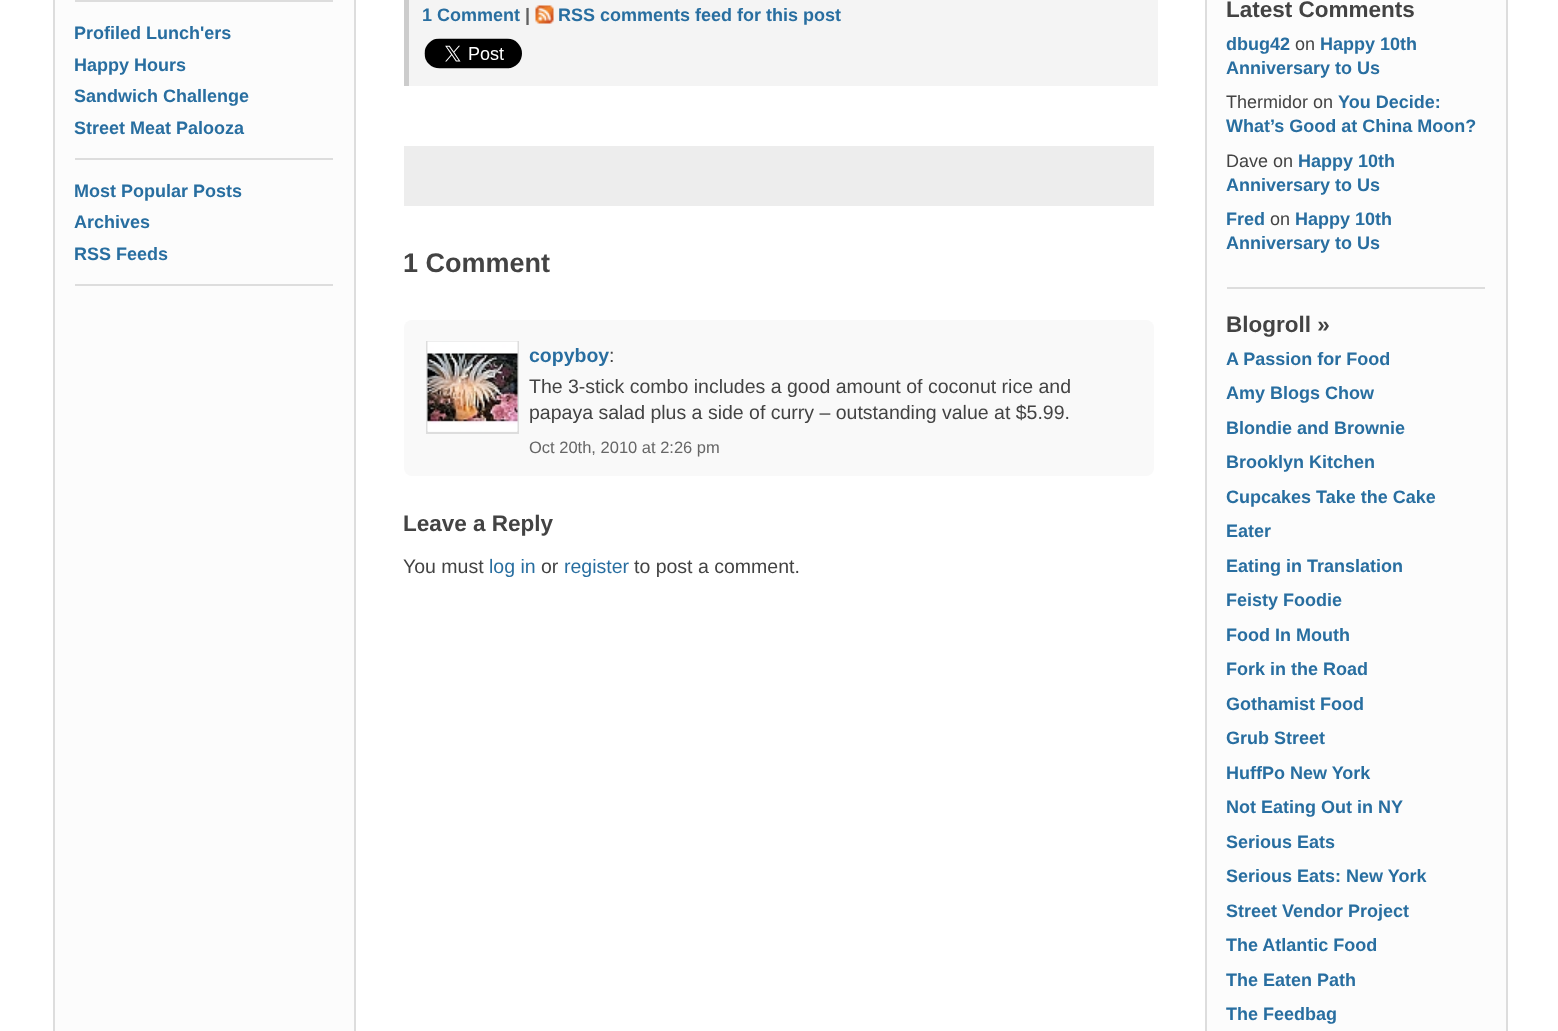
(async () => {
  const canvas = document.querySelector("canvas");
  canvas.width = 1558;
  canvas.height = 1031;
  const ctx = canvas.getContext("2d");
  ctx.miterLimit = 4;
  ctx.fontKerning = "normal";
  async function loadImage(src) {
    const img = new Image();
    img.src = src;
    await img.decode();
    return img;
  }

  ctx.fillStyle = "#ffffff";
  ctx.fillRect(0, 0, 1558, 1031);
  ctx.fillStyle = "#fcfcfc";
  ctx.beginPath();
  ctx.rect(54, -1, 301, 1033);
  ctx.fill();
  ctx.strokeStyle = "#dddddd";
  ctx.lineWidth = 2;
  ctx.stroke();
  for (const [x, y, w, h, color] of [
    [75, 0, 258, 2, "#dddddd"],
    [75, 158, 258, 2, "#dddddd"],
    [75, 284, 258, 2, "#dddddd"],
    [409, 0, 749, 86, "#f4f4f4"],
    [404, 0, 5, 86, "#cccccc"],
  ]) {
    ctx.fillStyle = color;
    ctx.fillRect(x, y, w, h);
  }
  ctx.drawImage(await loadImage("img/1.png"), 535, 5, 19, 19);
  ctx.drawImage(await loadImage("img/2.png"), 424, 38, 98, 31);
  ctx.fillStyle = "#ededed";
  ctx.fillRect(404, 146, 750, 60);
  ctx.fillStyle = "#f9f9f9";
  ctx.beginPath();
  ctx.roundRect(404, 320, 750, 156, 8);
  ctx.fill();
  ctx.strokeRect(427, 342, 91, 91);
  ctx.drawImage(await loadImage("img/3.png"), 427, 341, 91, 91);
  ctx.fillStyle = "#fcfcfc";
  ctx.beginPath();
  ctx.rect(1206, -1, 301, 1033);
  ctx.fill();
  ctx.stroke();
  ctx.fillStyle = "#dddddd";
  ctx.fillRect(1227, 287, 258, 2);
  ctx.font = "bold 18px Liberation Sans";
  ctx.fillStyle = "#286ea0";
  for (const [text, x, y] of [
    ["Profiled Lunch'ers", 74, 39],
    ["Happy Hours", 74, 71],
    ["Sandwich Challenge", 74, 102],
    ["Street Meat Palooza", 74, 134],
    ["Most Popular Posts", 74, 197],
    ["Archives", 74, 228],
    ["RSS Feeds", 74, 260],
    ["1 Comment", 422, 21],
  ]) {
    ctx.fillText(text, x, y);
  }
  ctx.fillStyle = "#606060";
  ctx.fillText("|", 525, 21);
  ctx.fillStyle = "#286ea0";
  ctx.fillText("RSS comments feed for this post", 558, 21);
  ctx.font = "bold 27px Liberation Sans";
  ctx.fillStyle = "#434343";
  ctx.fillText("1 Comment", 403, 272);
  ctx.font = "bold 19.5px Liberation Sans";
  ctx.fillStyle = "#286ea0";
  ctx.fillText("copyboy", 529, 362);
  ctx.font = "19.5px Liberation Sans";
  ctx.fillStyle = "#434343";
  for (const [text, x, y] of [
    [":", 609, 362],
    ["The 3-stick combo includes a good amount of coconut rice and", 529, 393],
    ["papaya salad plus a side of curry – outstanding value at $5.99.", 529, 419],
  ]) {
    ctx.fillText(text, x, y);
  }
  ctx.font = "16.5px Liberation Sans";
  ctx.fillStyle = "#666666";
  ctx.fillText("Oct 20th, 2010 at 2:26 pm", 529, 453);
  ctx.font = "bold 22.5px Liberation Sans";
  ctx.fillStyle = "#434343";
  ctx.fillText("Leave a Reply", 403, 531);
  ctx.font = "19.5px Liberation Sans";
  ctx.fillText("You must", 403, 573);
  ctx.fillStyle = "#286ea0";
  ctx.fillText("log in", 489, 573);
  ctx.fillStyle = "#434343";
  ctx.fillText("or", 541, 573);
  ctx.fillStyle = "#286ea0";
  ctx.fillText("register", 564, 573);
  ctx.fillStyle = "#434343";
  ctx.fillText("to post a comment.", 634, 573);
  ctx.font = "bold 22.5px Liberation Sans";
  ctx.fillText("Latest Comments", 1226, 17);
  ctx.font = "bold 18px Liberation Sans";
  ctx.fillStyle = "#286ea0";
  ctx.fillText("dbug42", 1226, 50);
  ctx.font = "18px Liberation Sans";
  ctx.fillStyle = "#434343";
  ctx.fillText("on", 1295, 50);
  ctx.font = "bold 18px Liberation Sans";
  ctx.fillStyle = "#286ea0";
  ctx.fillText("Happy 10th", 1320, 50);
  ctx.fillText("Anniversary to Us", 1226, 74);
  ctx.font = "18px Liberation Sans";
  ctx.fillStyle = "#434343";
  ctx.fillText("Thermidor on", 1226, 108);
  ctx.font = "bold 18px Liberation Sans";
  ctx.fillStyle = "#286ea0";
  ctx.fillText("You Decide:", 1338, 108);
  ctx.fillText("What’s Good at China Moon?", 1226, 132);
  ctx.font = "18px Liberation Sans";
  ctx.fillStyle = "#434343";
  ctx.fillText("Dave on", 1226, 167);
  ctx.font = "bold 18px Liberation Sans";
  ctx.fillStyle = "#286ea0";
  for (const [text, x, y] of [
    ["Happy 10th", 1298, 167],
    ["Anniversary to Us", 1226, 191],
    ["Fred", 1226, 225],
  ]) {
    ctx.fillText(text, x, y);
  }
  ctx.font = "18px Liberation Sans";
  ctx.fillStyle = "#434343";
  ctx.fillText("on", 1270, 225);
  ctx.font = "bold 18px Liberation Sans";
  ctx.fillStyle = "#286ea0";
  ctx.fillText("Happy 10th", 1295, 225);
  ctx.fillText("Anniversary to Us", 1226, 249);
  ctx.font = "bold 22.5px Liberation Sans";
  ctx.fillStyle = "#434343";
  ctx.fillText("Blogroll »", 1226, 332);
  ctx.font = "bold 18px Liberation Sans";
  ctx.fillStyle = "#286ea0";
  for (const [text, x, y] of [
    ["A Passion for Food", 1226, 365],
    ["Amy Blogs Chow", 1226, 399],
    ["Blondie and Brownie", 1226, 434],
    ["Brooklyn Kitchen", 1226, 468],
    ["Cupcakes Take the Cake", 1226, 503],
    ["Eater", 1226, 537],
    ["Eating in Translation", 1226, 572],
    ["Feisty Foodie", 1226, 606],
    ["Food In Mouth", 1226, 641],
    ["Fork in the Road", 1226, 675],
    ["Gothamist Food", 1226, 710],
    ["Grub Street", 1226, 744],
    ["HuffPo New York", 1226, 779],
    ["Not Eating Out in NY", 1226, 813],
    ["Serious Eats", 1226, 848],
    ["Serious Eats: New York", 1226, 882],
    ["Street Vendor Project", 1226, 917],
    ["The Atlantic Food", 1226, 951],
    ["The Eaten Path", 1226, 986],
    ["The Feedbag", 1226, 1020],
  ]) {
    ctx.fillText(text, x, y);
  }
})();
